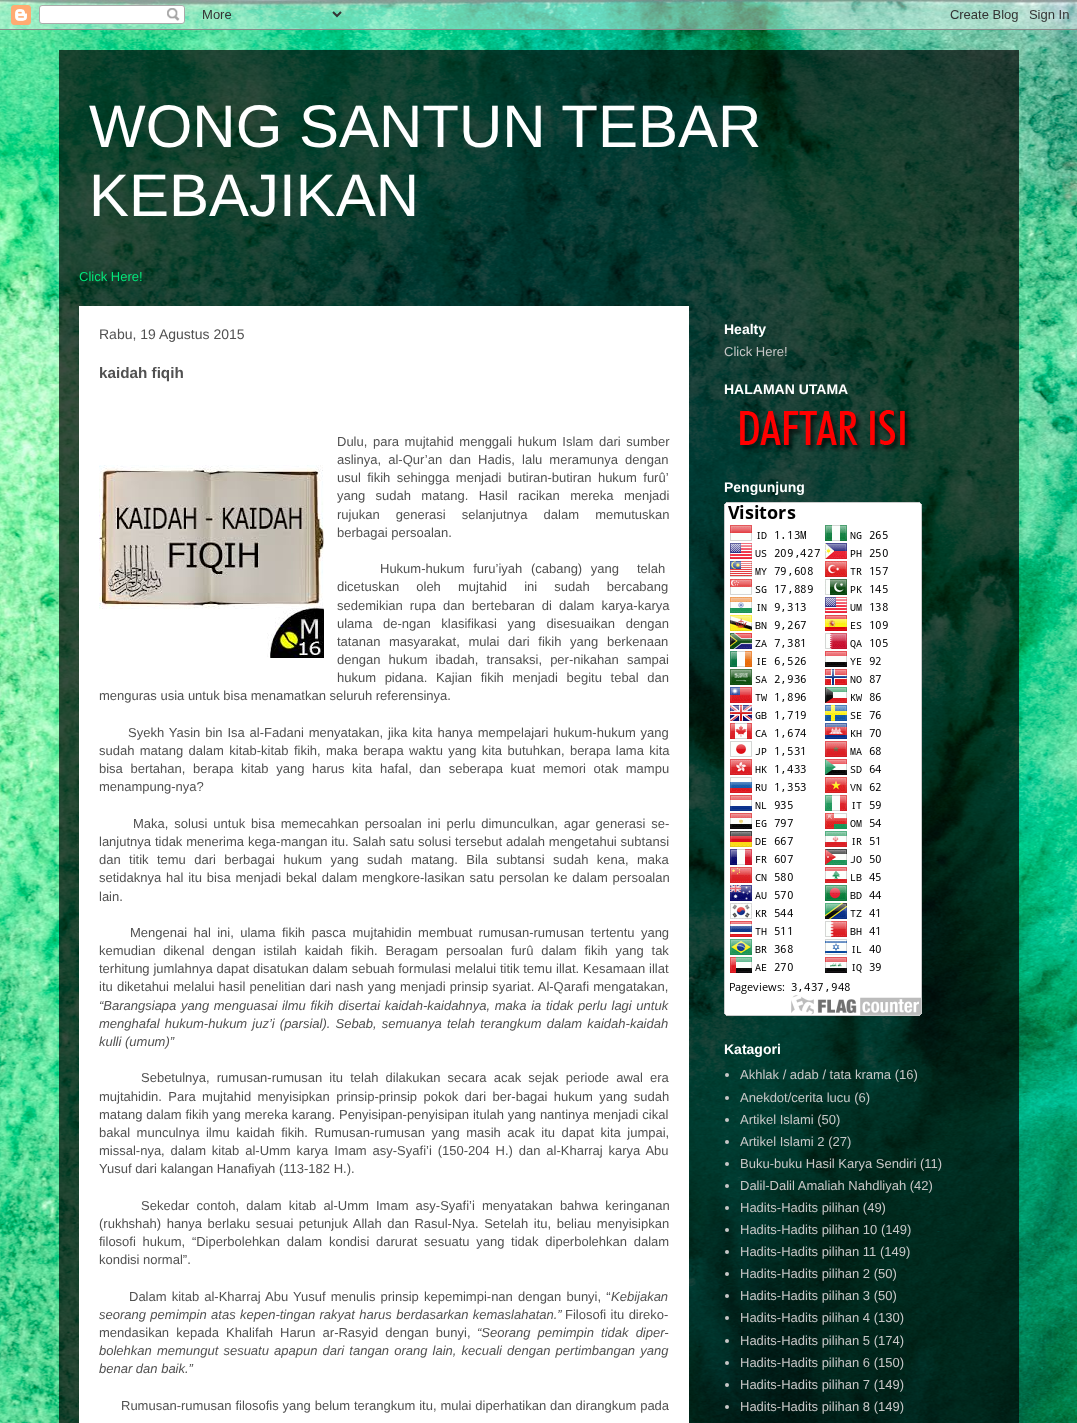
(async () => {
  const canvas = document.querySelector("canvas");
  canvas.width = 1077;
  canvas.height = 1423;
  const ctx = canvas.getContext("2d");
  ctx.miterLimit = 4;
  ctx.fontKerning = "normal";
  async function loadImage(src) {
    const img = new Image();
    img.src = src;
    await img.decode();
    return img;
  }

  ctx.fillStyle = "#ffffff";
  ctx.fillRect(0, 0, 1077, 1423);
  ctx.drawImage(await loadImage("img/1.png"), 0, 0, 1077, 1423);
  ctx.drawImage(await loadImage("img/2.png"), 0, 0, 1077, 30);
  ctx.fillStyle = "rgba(0, 0, 0, 0.7)";
  ctx.fillRect(59, 50, 960, 1373);
  ctx.fillStyle = "#ffffff";
  ctx.fillRect(79, 306, 610, 1117);
  ctx.drawImage(await loadImage("img/3.png"), 99, 465, 225, 193);
  ctx.drawImage(await loadImage("img/4.png"), 740, 410, 171, 42);
  ctx.drawImage(await loadImage("img/5.png"), 724, 502, 198, 514);
  ctx.fillStyle = "#c7c7c7";
  ctx.beginPath();
  ctx.arc(727, 1075, 2, 0, Math.PI * 2);
  ctx.fill();
  ctx.beginPath();
  ctx.arc(727, 1098, 2, 0, Math.PI * 2);
  ctx.fill();
  ctx.beginPath();
  ctx.arc(727, 1120, 2, 0, Math.PI * 2);
  ctx.fill();
  ctx.beginPath();
  ctx.arc(727, 1142, 2, 0, Math.PI * 2);
  ctx.fill();
  ctx.beginPath();
  ctx.arc(727, 1164, 2, 0, Math.PI * 2);
  ctx.fill();
  ctx.beginPath();
  ctx.arc(727, 1186, 2, 0, Math.PI * 2);
  ctx.fill();
  ctx.beginPath();
  ctx.arc(727, 1208, 2, 0, Math.PI * 2);
  ctx.fill();
  ctx.beginPath();
  ctx.arc(727, 1230, 2, 0, Math.PI * 2);
  ctx.fill();
  ctx.beginPath();
  ctx.arc(727, 1252, 2, 0, Math.PI * 2);
  ctx.fill();
  ctx.beginPath();
  ctx.arc(727, 1274, 2, 0, Math.PI * 2);
  ctx.fill();
  ctx.beginPath();
  ctx.arc(727, 1296, 2, 0, Math.PI * 2);
  ctx.fill();
  ctx.beginPath();
  ctx.arc(727, 1318, 2, 0, Math.PI * 2);
  ctx.fill();
  ctx.beginPath();
  ctx.arc(727, 1341, 2, 0, Math.PI * 2);
  ctx.fill();
  ctx.beginPath();
  ctx.arc(727, 1363, 2, 0, Math.PI * 2);
  ctx.fill();
  ctx.beginPath();
  ctx.arc(727, 1385, 2, 0, Math.PI * 2);
  ctx.fill();
  ctx.beginPath();
  ctx.arc(727, 1407, 2, 0, Math.PI * 2);
  ctx.fill();
  ctx.font = "60px Liberation Sans";
  ctx.fillStyle = "#ffffff";
  ctx.fillText("WONG SANTUN TEBAR", 89, 147);
  ctx.fillText("KEBAJIKAN", 89, 216);
  ctx.font = "13px Liberation Sans";
  ctx.fillStyle = "#00e77a";
  ctx.fillText("Click Here!", 79, 281);
  ctx.font = "14px Liberation Sans";
  ctx.fillStyle = "#515151";
  ctx.fillText("Rabu, 19 Agustus 2015", 99, 339);
  ctx.font = "bold 15.25px Liberation Sans";
  ctx.fillText("kaidah fiqih", 99, 378);
  ctx.wordSpacing = "2px";
  ctx.font = "13px Liberation Sans";
  ctx.fillText("Dulu, para mujtahid menggali hukum Islam dari sumber", 337, 446);
  ctx.wordSpacing = "3.5px";
  ctx.fillText("aslinya, al-Qur’an dan Hadis, lalu meramunya dengan", 337, 464);
  ctx.wordSpacing = "2.75px";
  ctx.fillText("usul fikih sehingga menjadi butiran-butiran hukum furû’", 337, 482);
  ctx.wordSpacing = "6.75px";
  ctx.fillText("yang sudah matang. Hasil racikan mereka menjadi", 337, 500);
  ctx.wordSpacing = "12.5px";
  ctx.fillText("rujukan generasi selanjutnya dalam memutuskan", 337, 519);
  ctx.wordSpacing = "0px";
  ctx.fillText("berbagai persoalan.", 337, 537);
  ctx.wordSpacing = "5px";
  ctx.fillText("Hukum-hukum furu’iyah (cabang) yang", 380, 573);
  ctx.wordSpacing = "0px";
  ctx.fillText("telah", 637, 573);
  ctx.wordSpacing = "13.5px";
  ctx.fillText("dicetuskan oleh mujtahid ini sudah bercabang", 337, 591);
  ctx.wordSpacing = "3.5px";
  ctx.fillText("sedemikian rupa dan bertebaran di dalam karya-karya", 337, 610);
  ctx.wordSpacing = "7px";
  ctx.fillText("ulama de-ngan klasifikasi yang disesuaikan dengan", 337, 628);
  ctx.wordSpacing = "5px";
  ctx.fillText("tatanan masyarakat, mulai dari fikih yang berkenaan", 337, 646);
  ctx.wordSpacing = "4.5px";
  ctx.fillText("dengan hukum ibadah, transaksi, per-nikahan sampai", 337, 664);
  ctx.wordSpacing = "5px";
  ctx.fillText("hukum pidana. Kajian fikih menjadi begitu tebal dan", 337, 682);
  ctx.wordSpacing = "0px";
  ctx.fillText("menguras usia untuk bisa menamatkan seluruh referensinya.", 99, 700);
  ctx.wordSpacing = "1.25px";
  ctx.fillText("Syekh Yasin bin Isa al-Fadani menyatakan, jika kita hanya mempelajari hukum-hukum yang", 128, 737);
  ctx.wordSpacing = "1.75px";
  ctx.fillText("sudah matang dalam kitab-kitab fikih, maka berapa waktu yang kita butuhkan, berapa lama kita", 99, 755);
  ctx.wordSpacing = "4px";
  ctx.fillText("bisa bertahan, berapa kitab yang harus kita hafal, dan seberapa kuat memori otak mampu", 99, 773);
  ctx.wordSpacing = "0px";
  ctx.fillText("menampung-nya?", 99, 791);
  ctx.wordSpacing = "2.25px";
  ctx.fillText("Maka, solusi untuk bisa memecahkan persoalan ini perlu dimunculkan, agar generasi se-", 133, 828);
  ctx.wordSpacing = "0.25px";
  ctx.fillText("lanjutnya tidak menerima kega-mangan itu. Salah satu solusi tersebut adalah mengetahui subtansi", 99, 846);
  ctx.wordSpacing = "4.75px";
  ctx.fillText("dan titik temu dari berbagai hukum yang sudah matang. Bila subtansi sudah kena, maka", 99, 864);
  ctx.wordSpacing = "1.25px";
  ctx.fillText("setidaknya hal itu bisa menjadi bekal dalam mengkore-lasikan satu persolan ke dalam persoalan", 99, 882);
  ctx.wordSpacing = "0px";
  ctx.fillText("lain.", 99, 901);
  ctx.wordSpacing = "2.75px";
  ctx.fillText("Mengenai hal ini, ulama fikih pasca mujtahidin membuat rumusan-rumusan tertentu yang", 130, 937);
  ctx.wordSpacing = "4.25px";
  ctx.fillText("kemudian dikenal dengan istilah kaidah fikih. Beragam persoalan furû dalam fikih yang tak", 99, 955);
  ctx.wordSpacing = "0.25px";
  ctx.fillText("terhitung jumlahnya dapat disatukan dalam sebuah formulasi melalui titik temu illat. Kesamaan illat", 99, 973);
  ctx.wordSpacing = "0.6px";
  ctx.fillText("itu diketahui melalui hasil penelitian dari nash yang menjadi prinsip syariat. Al-Qarafi mengatakan,", 99, 991);
  ctx.wordSpacing = "1px";
  ctx.font = "italic 13px Liberation Sans";
  ctx.fillText("“Barangsiapa yang menguasai ilmu fikih disertai kaidah-kaidahnya, maka ia tidak perlu lagi untuk", 99, 1010);
  ctx.wordSpacing = "1.5px";
  ctx.fillText("menghafal hukum-hukum juz’i (parsial). Sebab, semuanya telah terangkum dalam kaidah-kaidah", 99, 1028);
  ctx.wordSpacing = "0px";
  ctx.fillText("kulli (umum)”", 99, 1046);
  ctx.wordSpacing = "3.5px";
  ctx.font = "13px Liberation Sans";
  ctx.fillText("Sebetulnya, rumusan-rumusan itu telah dilakukan secara acak sejak periode awal era", 141, 1082);
  ctx.wordSpacing = "2.75px";
  ctx.fillText("mujtahidin. Para mujtahid menyisipkan prinsip-prinsip pokok dari ber-bagai hukum yang sudah", 99, 1101);
  ctx.wordSpacing = "0.25px";
  ctx.fillText("matang dalam fikih yang mereka karang. Penyisipan-penyisipan itulah yang nantinya menjadi cikal", 99, 1119);
  ctx.wordSpacing = "2.9px";
  ctx.fillText("bakal munculnya ilmu kaidah fikih. Rumusan-rumusan yang masih acak itu dapat kita jumpai,", 99, 1137);
  ctx.wordSpacing = "2.25px";
  ctx.fillText("missal-nya, dalam kitab al-Umm karya Imam asy-Syafi’i (150-204 H.) dan al-Kharraj karya Abu", 99, 1155);
  ctx.wordSpacing = "0px";
  ctx.fillText("Yusuf dari kalangan Hanafiyah (113-182 H.).", 99, 1173);
  ctx.wordSpacing = "3.5px";
  ctx.fillText("Sekedar contoh, dalam kitab al-Umm Imam asy-Syafi’i menyatakan bahwa keringanan", 141, 1210);
  ctx.wordSpacing = "1.9px";
  ctx.fillText("(rukhshah) hanya berlaku sesuai petunjuk Allah dan Rasul-Nya. Setelah itu, beliau menyisipkan", 99, 1228);
  ctx.wordSpacing = "3.1px";
  ctx.fillText("filosofi hukum, “Diperbolehkan dalam kondisi darurat sesuatu yang tidak diperbolehkan dalam", 99, 1246);
  ctx.wordSpacing = "0px";
  ctx.fillText("kondisi normal”.", 99, 1264);
  ctx.wordSpacing = "1.5px";
  ctx.fillText("Dalam kitab al-Kharraj Abu Yusuf menulis prinsip kepemimpi-nan dengan bunyi, “", 129, 1301);
  ctx.wordSpacing = "0px";
  ctx.font = "italic 13px Liberation Sans";
  ctx.fillText("Kebijakan", 611, 1301);
  ctx.wordSpacing = "0.75px";
  ctx.fillText("seorang pemimpin atas kepen-tingan rakyat harus berdasarkan kemaslahatan.”", 99, 1319);
  ctx.font = "13px Liberation Sans";
  ctx.fillText("Filosofi itu direko-", 565, 1319);
  ctx.wordSpacing = "3.5px";
  ctx.fillText("mendasikan kepada Khalifah Harun ar-Rasyid dengan bunyi,", 99, 1337);
  ctx.font = "italic 13px Liberation Sans";
  ctx.fillText("“Seorang pemimpin tidak diper-", 477, 1337);
  ctx.wordSpacing = "1.5px";
  ctx.fillText("bolehkan memungut sesuatu apapun dari tangan orang lain, kecuali dengan pertimbangan yang", 99, 1355);
  ctx.wordSpacing = "0px";
  ctx.fillText("benar dan baik.”", 99, 1373);
  ctx.wordSpacing = "0.25px";
  ctx.font = "13px Liberation Sans";
  ctx.fillText("Rumusan-rumusan filosofis yang belum terangkum itu, mulai diperhatikan dan dirangkum pada", 121, 1410);
  ctx.wordSpacing = "0px";
  ctx.font = "bold 14px Liberation Sans";
  ctx.fillStyle = "#ffffff";
  ctx.fillText("Healty", 724, 334);
  ctx.font = "13px Liberation Sans";
  ctx.fillStyle = "#c7c7c7";
  ctx.fillText("Click Here!", 724, 356);
  ctx.font = "bold 14px Liberation Sans";
  ctx.fillStyle = "#ffffff";
  for (const [text, x, y] of [
    ["HALAMAN UTAMA", 724, 394],
    ["Pengunjung", 724, 492],
    ["Katagori", 724, 1054],
  ]) {
    ctx.fillText(text, x, y);
  }
  ctx.font = "13px Liberation Sans";
  ctx.fillStyle = "#c7c7c7";
  for (const [text, x, y] of [
    ["Akhlak / adab / tata krama (16)", 740, 1079],
    ["Anekdot/cerita lucu (6)", 740, 1102],
    ["Artikel Islami (50)", 740, 1124],
    ["Artikel Islami 2 (27)", 740, 1146],
    ["Buku-buku Hasil Karya Sendiri (11)", 740, 1168],
    ["Dalil-Dalil Amaliah Nahdliyah (42)", 740, 1190],
    ["Hadits-Hadits pilihan (49)", 740, 1212],
    ["Hadits-Hadits pilihan 10 (149)", 740, 1234],
    ["Hadits-Hadits pilihan 11 (149)", 740, 1256],
    ["Hadits-Hadits pilihan 2 (50)", 740, 1278],
    ["Hadits-Hadits pilihan 3 (50)", 740, 1300],
    ["Hadits-Hadits pilihan 4 (130)", 740, 1322],
    ["Hadits-Hadits pilihan 5 (174)", 740, 1345],
    ["Hadits-Hadits pilihan 6 (150)", 740, 1367],
    ["Hadits-Hadits pilihan 7 (149)", 740, 1389],
    ["Hadits-Hadits pilihan 8 (149)", 740, 1411],
  ]) {
    ctx.fillText(text, x, y);
  }
})();
